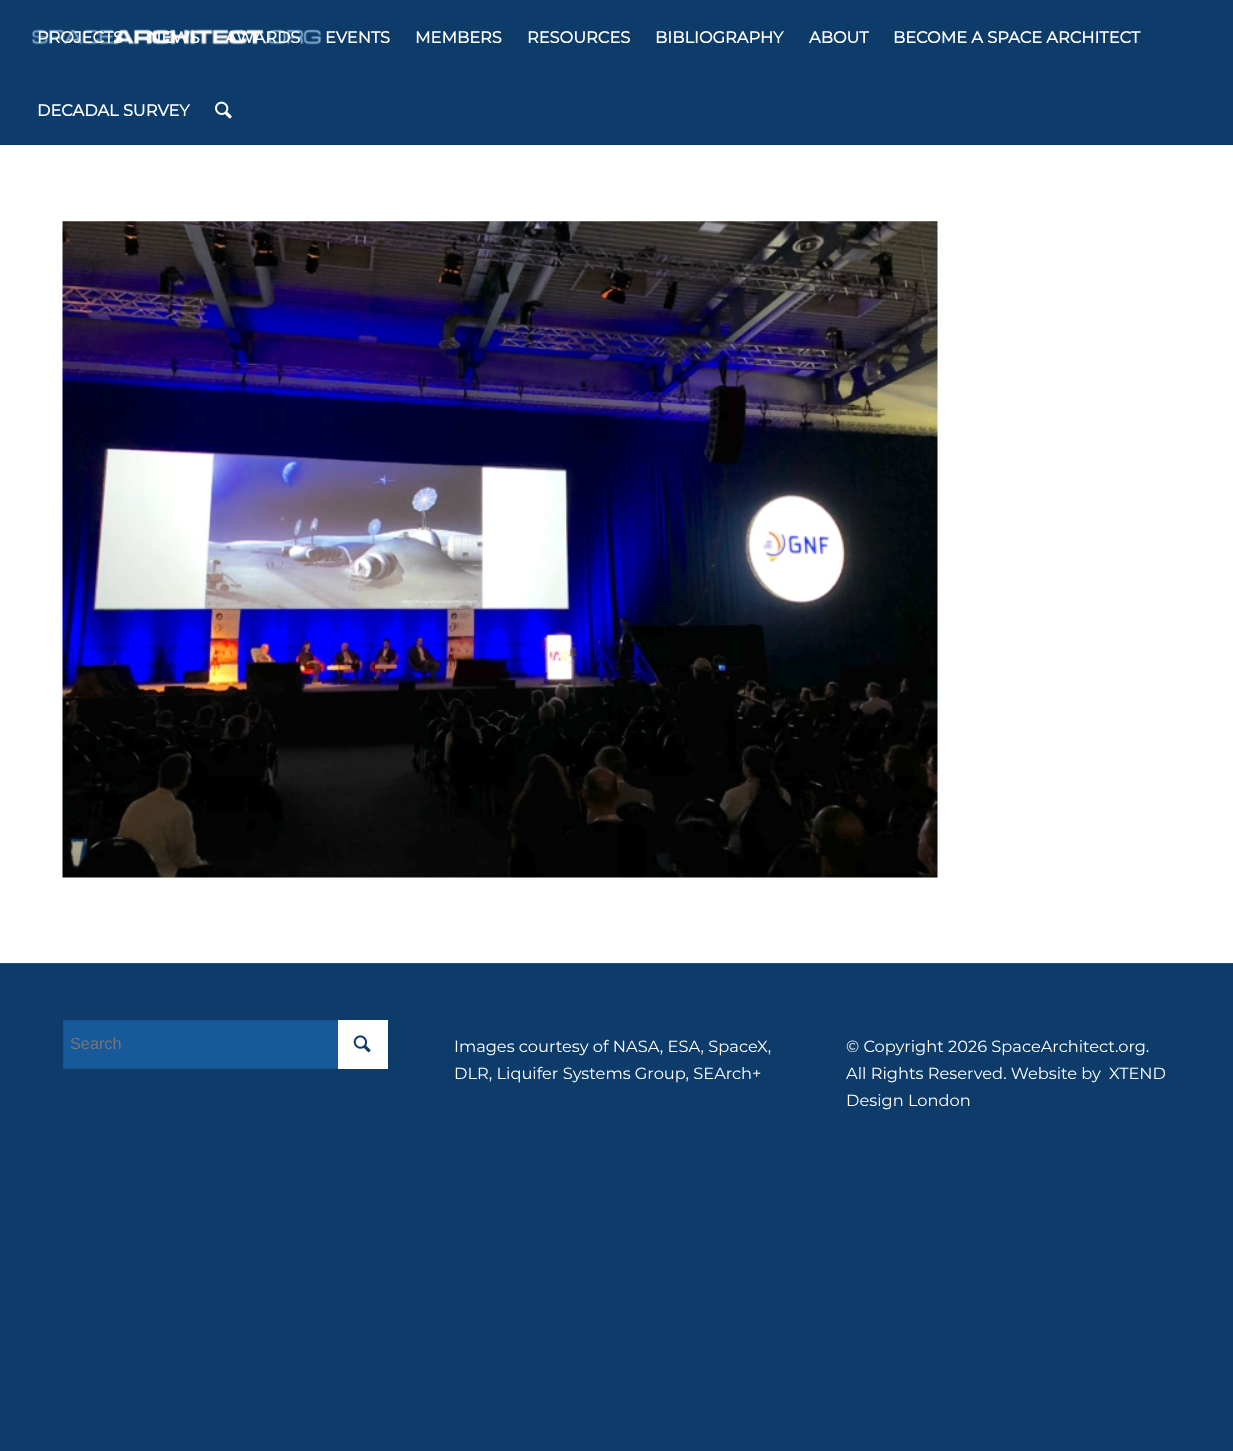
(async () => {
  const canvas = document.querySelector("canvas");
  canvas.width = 1233;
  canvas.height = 1451;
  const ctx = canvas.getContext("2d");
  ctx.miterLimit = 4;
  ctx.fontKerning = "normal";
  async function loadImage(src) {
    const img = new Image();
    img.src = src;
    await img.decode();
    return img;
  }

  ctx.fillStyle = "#0d3c6b";
  ctx.fillRect(0, 0, 1233, 1451);
  ctx.drawImage(await loadImage("img/1.png"), 32, 29, 290, 16);
  ctx.drawImage(await loadImage("img/2.png"), 215, 101, 17, 18);
  ctx.fillStyle = "#ffffff";
  ctx.fillRect(0, 145, 1233, 818);
  ctx.drawImage(await loadImage("img/3.png"), 62, 221, 876, 657);
  ctx.fillStyle = "#1a538c";
  ctx.fillRect(0, 963, 1233, 1);
  ctx.fillStyle = "#175a9c";
  ctx.fillRect(64, 1021, 274, 47);
  ctx.strokeStyle = "#1a538c";
  ctx.strokeRect(63.5, 1020.5, 324, 48);
  ctx.fillStyle = "#ffffff";
  ctx.fillRect(338, 1020, 50, 49);
  ctx.drawImage(await loadImage("img/4.png"), 353, 1035, 18, 18);
  ctx.font = "bold 16.25px Montserrat";
  for (const [text, x, y] of [
    ["PROJECTS", 37, 43],
    ["NEWS", 148, 43],
    ["AWARDS", 225, 43],
    ["EVENTS", 325, 43],
    ["MEMBERS", 415, 43],
    ["RESOURCES", 527, 43],
    ["BIBLIOGRAPHY", 655, 43],
    ["ABOUT", 809, 43],
    ["BECOME A SPACE ARCHITECT", 893, 43],
    ["DECADAL SURVEY", 37, 116],
  ]) {
    ctx.fillText(text, x, y);
  }
  ctx.font = "16.25px Liberation Sans";
  ctx.fillStyle = "#757575";
  ctx.fillText("Search", 70, 1049);
  ctx.font = "100 16.25px Montserrat";
  ctx.fillStyle = "#ffffff";
  for (const [text, x, y] of [
    ["Images courtesy of NASA, ESA, SpaceX,", 454, 1052],
    ["DLR, Liquifer Systems Group, SEArch+", 454, 1079],
    ["© Copyright 2026 SpaceArchitect.org.", 846, 1052],
    ["All Rights Reserved. Website by", 846, 1079],
    ["XTEND", 1109, 1079],
    ["Design London", 846, 1106],
  ]) {
    ctx.fillText(text, x, y);
  }
})();
